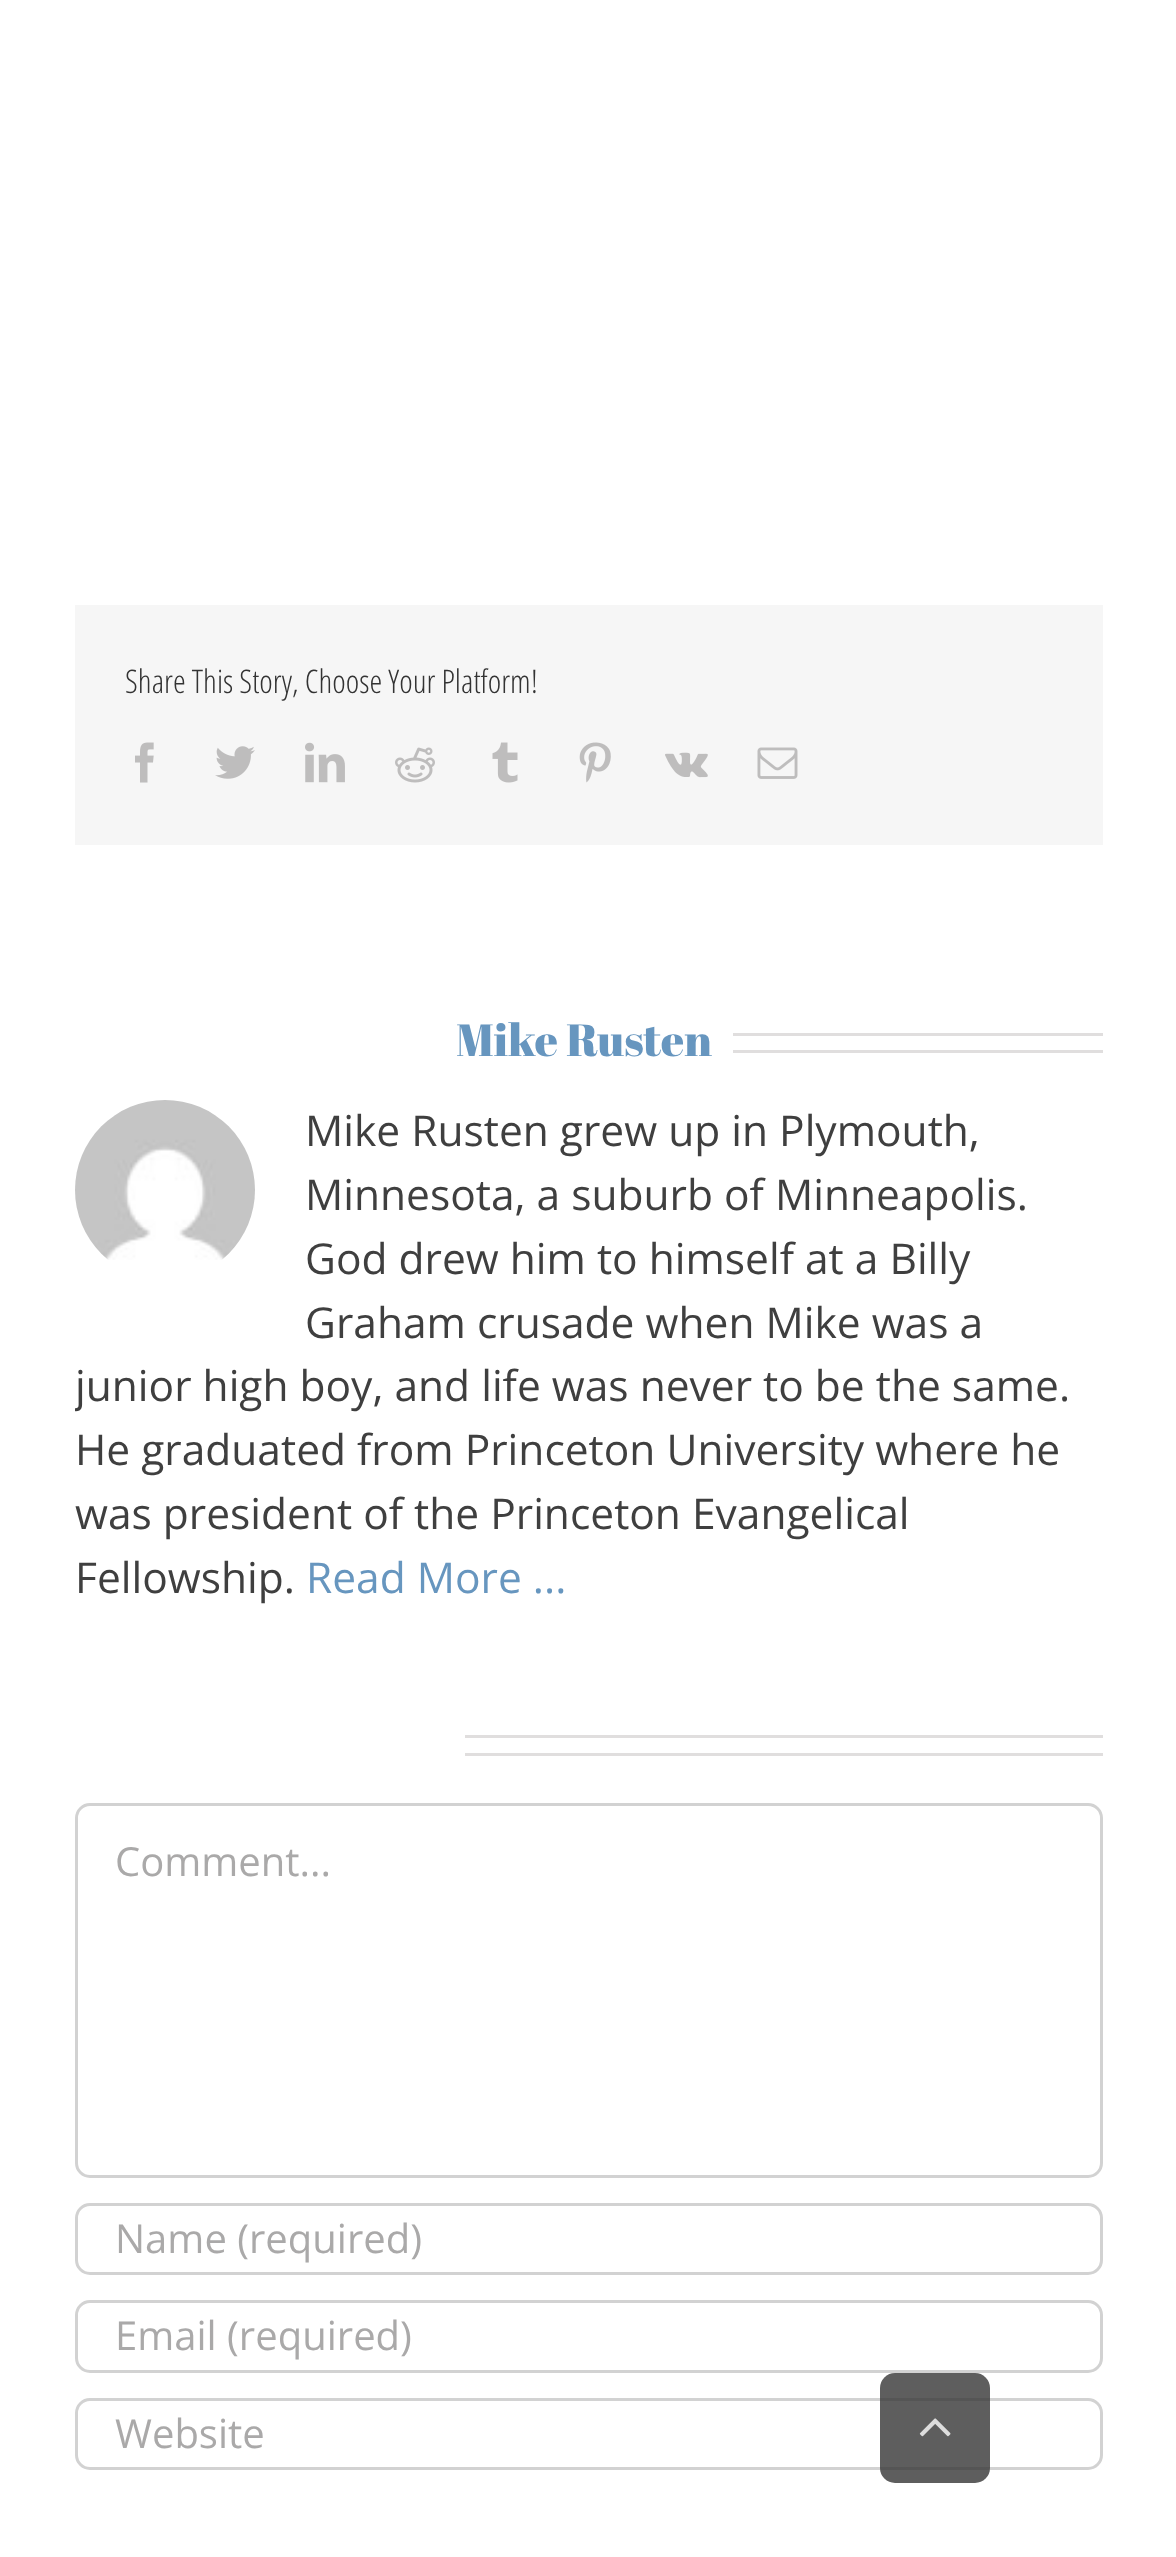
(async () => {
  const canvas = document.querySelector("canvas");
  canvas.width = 1176;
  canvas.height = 2557;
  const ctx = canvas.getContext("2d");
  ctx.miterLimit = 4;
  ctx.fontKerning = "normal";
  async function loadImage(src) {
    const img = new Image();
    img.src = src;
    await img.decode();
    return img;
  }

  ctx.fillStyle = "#ffffff";
  ctx.fillRect(0, 0, 1176, 2557);
  ctx.fillStyle = "#f6f6f6";
  ctx.fillRect(75, 605, 1028, 240);
  ctx.drawImage(await loadImage("img/1.png"), 135, 742, 19, 41);
  ctx.drawImage(await loadImage("img/2.png"), 215, 746, 40, 33);
  ctx.drawImage(await loadImage("img/3.png"), 305, 742, 40, 41);
  ctx.drawImage(await loadImage("img/4.png"), 395, 747, 40, 36);
  ctx.drawImage(await loadImage("img/5.png"), 492, 742, 26, 41);
  ctx.drawImage(await loadImage("img/6.png"), 579, 742, 32, 41);
  ctx.drawImage(await loadImage("img/7.png"), 665, 752, 43, 26);
  ctx.drawImage(await loadImage("img/8.png"), 757, 747, 41, 32);
  ctx.fillStyle = "#e0dede";
  ctx.fillRect(733, 1033, 370, 3);
  ctx.fillRect(733, 1050, 370, 3);
  ctx.drawImage(await loadImage("img/9.png"), 75, 1100, 180, 160);
  ctx.fillRect(465, 1735, 638, 3);
  ctx.fillRect(465, 1753, 638, 3);
  ctx.beginPath();
  ctx.roundRect(76.5, 1804.5, 1025, 372, 13.5);
  ctx.strokeStyle = "#d2d2d2";
  ctx.lineWidth = 3;
  ctx.stroke();
  ctx.beginPath();
  ctx.roundRect(76.5, 2204.5, 1025, 69, 13.5);
  ctx.stroke();
  ctx.beginPath();
  ctx.roundRect(76.5, 2301.5, 1025, 70, 13.5);
  ctx.stroke();
  ctx.beginPath();
  ctx.roundRect(76.5, 2399.5, 1025, 69, 13.5);
  ctx.stroke();
  ctx.fillStyle = "rgba(51, 51, 51, 0.79)";
  ctx.beginPath();
  ctx.roundRect(880, 2373, 110, 110, 15);
  ctx.fill();
  ctx.drawImage(await loadImage("img/10.png"), 919, 2418, 32, 19);
  ctx.font = "300 32.5px Open Sans Condensed";
  ctx.fillStyle = "#333333";
  ctx.fillText("Share This Story, Choose Your Platform!", 125, 693);
  ctx.font = "45px Abril Fatface";
  ctx.fillStyle = "#6796bf";
  ctx.fillText("Mike Rusten", 456, 1056);
  ctx.font = "42.5px Open Sans";
  ctx.fillStyle = "#3f3f3f";
  for (const [text, x, y] of [
    ["Mike Rusten grew up in Plymouth,", 305, 1146],
    ["Minnesota, a suburb of Minneapolis.", 305, 1210],
    ["God drew him to himself at a Billy", 305, 1274],
    ["Graham crusade when Mike was a", 305, 1338],
  ]) {
    ctx.fillText(text, x, y);
  }
  ctx.save();
  ctx.beginPath();
  ctx.rect(75, 983, 1028, 627);
  ctx.clip();
  ctx.fillText("junior high boy, and life was never to be the same.", 75, 1401);
  ctx.restore();
  for (const [text, x, y] of [
    ["He graduated from Princeton University where he", 75, 1465],
    ["was president of the Princeton Evangelical", 75, 1529],
    ["Fellowship.", 75, 1593],
  ]) {
    ctx.fillText(text, x, y);
  }
  ctx.fillStyle = "#6796bf";
  ctx.fillText("Read More ...", 306, 1593);
  ctx.font = "40px Open Sans";
  ctx.fillStyle = "#aaa9a9";
  for (const [text, x, y] of [
    ["Comment...", 115, 1876],
    ["Name (required)", 115, 2253],
    ["Email (required)", 115, 2350],
    ["Website", 115, 2448],
  ]) {
    ctx.fillText(text, x, y);
  }
})();
